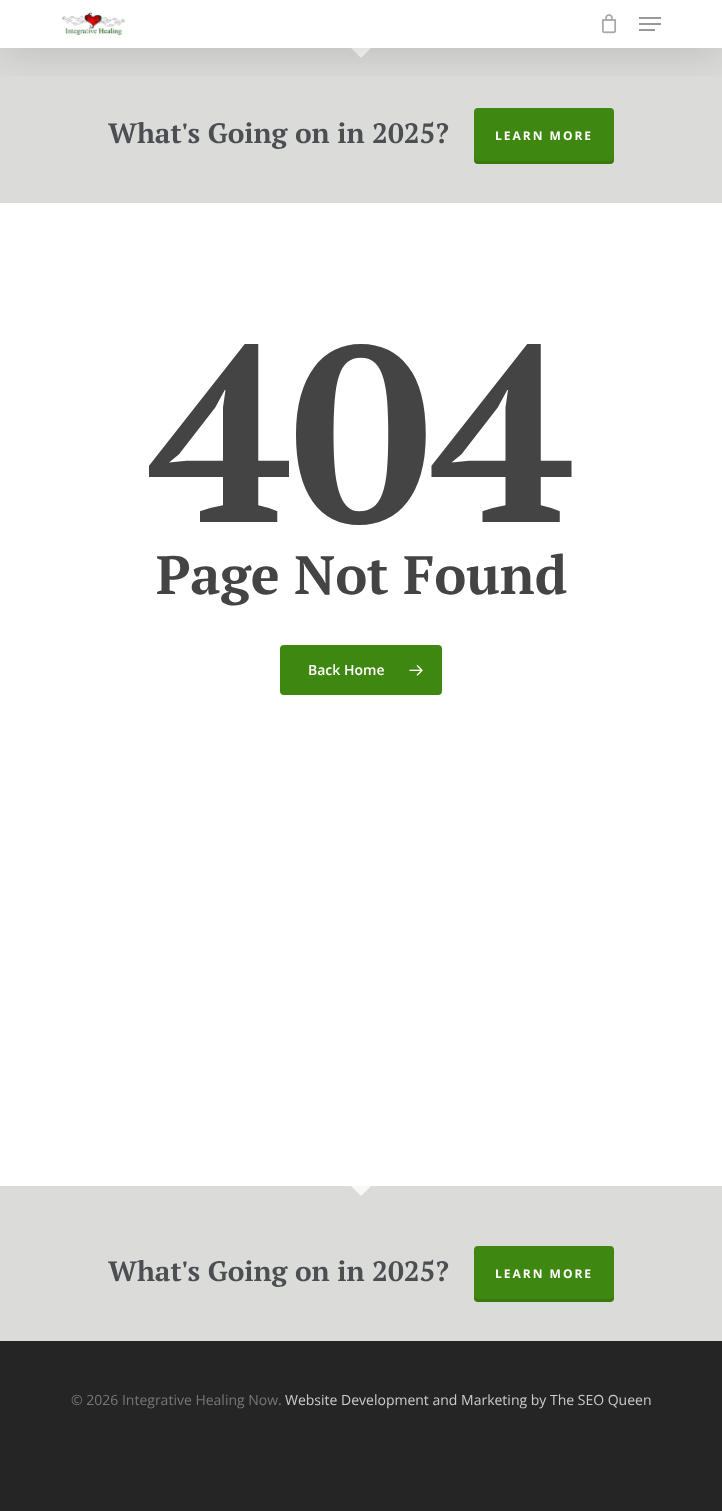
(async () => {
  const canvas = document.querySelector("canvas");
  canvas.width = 722;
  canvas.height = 1511;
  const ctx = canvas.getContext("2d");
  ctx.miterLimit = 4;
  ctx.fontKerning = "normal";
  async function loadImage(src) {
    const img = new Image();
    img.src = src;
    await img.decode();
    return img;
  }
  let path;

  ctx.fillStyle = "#ffffff";
  ctx.fillRect(0, 0, 722, 1511);
  ctx.fillStyle = "#dbdbd9";
  ctx.fillRect(0, 48, 722, 155);
  ctx.fillStyle = "#f8f8f8";
  path = new Path2D("M351 48H371L361 58Z");
  ctx.fill(path);
  ctx.fillStyle = "#3e8710";
  ctx.beginPath();
  ctx.roundRect(474, 108, 140, 56, 4);
  ctx.fill();
  ctx.save();
  ctx.beginPath();
  ctx.rect(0, 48, 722, 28);
  ctx.clip();
  ctx.fillStyle = "rgba(0, 0, 0, 0.15)";
  ctx.filter = "blur(22.5px)";
  ctx.beginPath();
  ctx.rect(0, 3, 722, 48);
  ctx.fill();
  ctx.filter = "none";
  ctx.restore();
  ctx.drawImage(await loadImage("img/1.png"), 62, 12, 64, 24);
  ctx.drawImage(await loadImage("img/2.png"), 602, 14, 15, 20);
  for (const [x, y, w, h, color] of [
    [639, 17, 22, 2, "#999999"],
    [639, 29, 16, 2, "#999999"],
    [639, 23, 22, 2, "#999999"],
  ]) {
    ctx.fillStyle = color;
    ctx.fillRect(x, y, w, h);
  }
  ctx.fillStyle = "rgba(0, 0, 0, 0.1)";
  path = new Path2D("M474 157V160C474 162 476 164 478 164H610C612 164 614 162 614 160V157C614 159 612 161 610 161H478C476 161 474 159 474 157Z");
  ctx.fill(path);
  ctx.fillStyle = "#3e8710";
  ctx.beginPath();
  ctx.roundRect(280, 645, 162, 50, 4);
  ctx.fill();
  ctx.drawImage(await loadImage("img/3.png"), 409, 665, 14, 11);
  ctx.fillStyle = "#252525";
  ctx.fillRect(0, 1341, 722, 170);
  ctx.fillStyle = "#dbdbd9";
  ctx.fillRect(0, 1186, 722, 155);
  ctx.fillStyle = "#f8f8f8";
  path = new Path2D("M351 1186H371L361 1196Z");
  ctx.fill(path);
  ctx.fillStyle = "#3e8710";
  ctx.beginPath();
  ctx.roundRect(474, 1246, 140, 56, 4);
  ctx.fill();
  ctx.fillStyle = "rgba(0, 0, 0, 0.1)";
  path = new Path2D("M474 1295V1298C474 1300 476 1302 478 1302H610C612 1302 614 1300 614 1298V1295C614 1297 612 1299 610 1299H478C476 1299 474 1297 474 1295Z");
  ctx.fill(path);
  ctx.font = "bold 28px PT Serif";
  ctx.fillStyle = "#4b4f52";
  ctx.fillText("What's Going on in 2025?", 108, 143);
  ctx.letterSpacing = "2px";
  ctx.font = "bold 12px Open Sans";
  ctx.fillStyle = "#ffffff";
  ctx.fillText("LEARN MORE", 495, 140);
  ctx.letterSpacing = "0px";
  ctx.font = "bold 250px PT Serif";
  ctx.fillStyle = "#444444";
  ctx.fillText("404", 149, 522);
  ctx.font = "bold 54px PT Serif";
  ctx.fillText("Page Not Found", 156, 594);
  ctx.font = "600 14px Open Sans";
  ctx.fillStyle = "#ffffff";
  ctx.fillText("Back Home", 308, 675);
  ctx.font = "bold 28px PT Serif";
  ctx.fillStyle = "#4b4f52";
  ctx.fillText("What's Going on in 2025?", 108, 1281);
  ctx.letterSpacing = "2px";
  ctx.font = "bold 12px Open Sans";
  ctx.fillStyle = "#ffffff";
  ctx.fillText("LEARN MORE", 495, 1278);
  ctx.letterSpacing = "0px";
  ctx.font = "14px Open Sans";
  ctx.fillStyle = "#777777";
  ctx.fillText("© 2026 Integrative Healing Now.", 71, 1405);
  ctx.fillStyle = "#cccccc";
  ctx.fillText("Website Development and Marketing by The SEO Queen", 285, 1405);
})();
